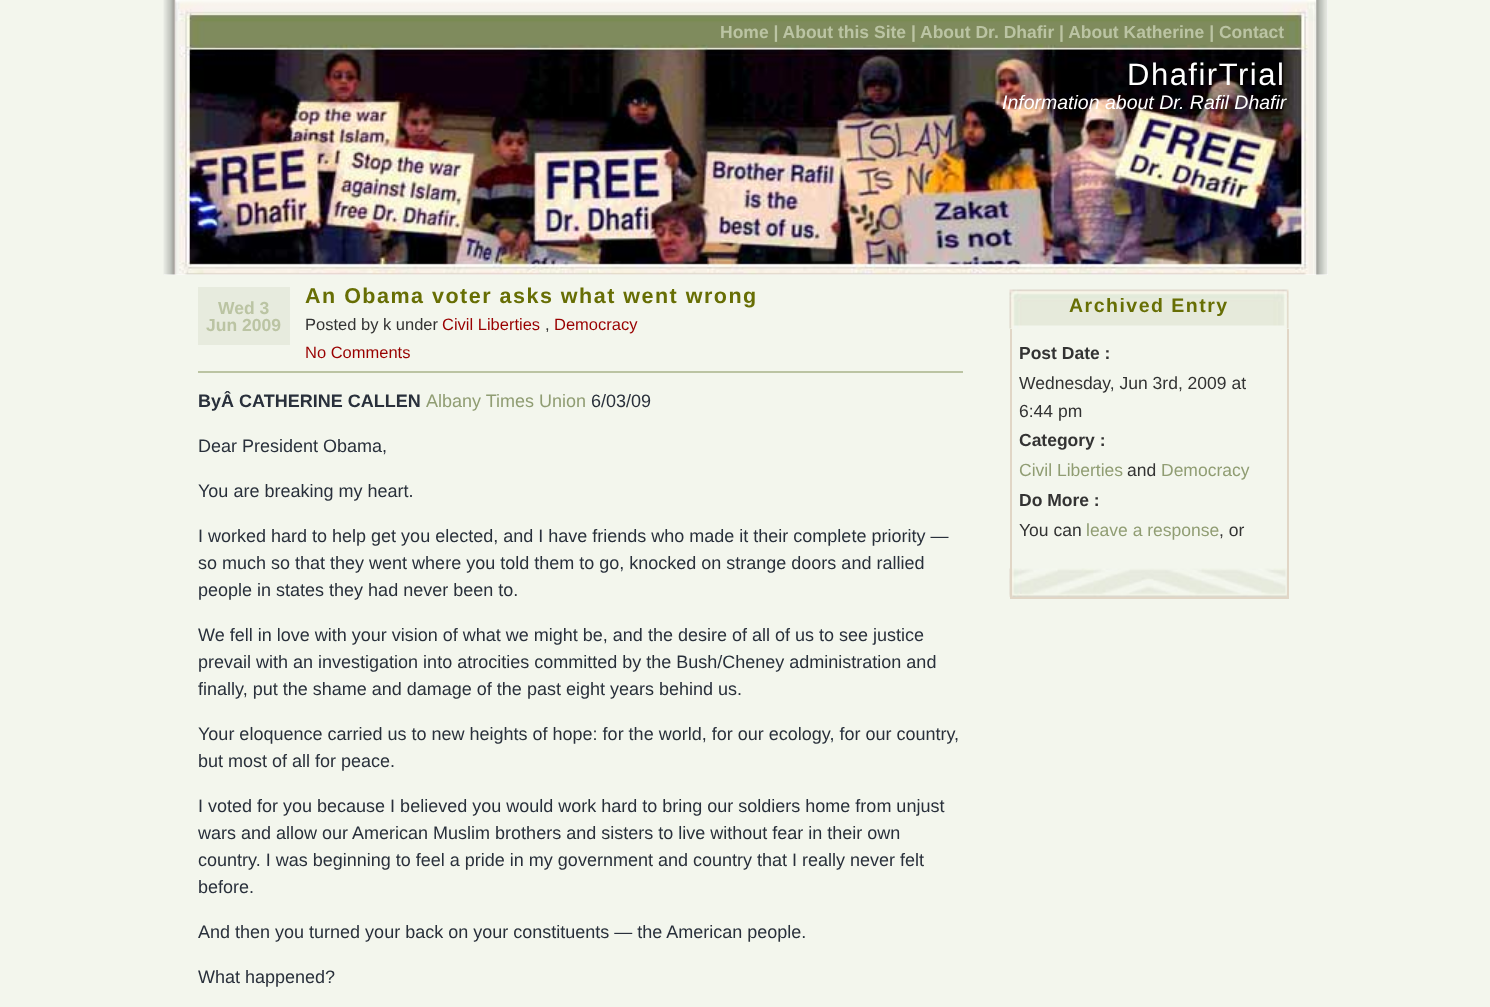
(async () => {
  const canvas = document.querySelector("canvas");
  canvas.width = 1490;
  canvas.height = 1007;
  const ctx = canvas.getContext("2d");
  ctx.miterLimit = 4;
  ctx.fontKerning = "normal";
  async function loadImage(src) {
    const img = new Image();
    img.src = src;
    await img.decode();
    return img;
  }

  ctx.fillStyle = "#f3f6ed";
  ctx.fillRect(0, 0, 1490, 1007);
  ctx.fillStyle = "#ffffff";
  ctx.fillRect(164, 0, 1164, 275);
  ctx.drawImage(await loadImage("img/1.png"), 163, 0, 1165, 275);
  ctx.fillRect(176, 0, 1140, 275);
  ctx.drawImage(await loadImage("img/2.png"), 175, 0, 1141, 275);
  ctx.fillStyle = "#e7ebde";
  ctx.fillRect(198, 287, 92, 58);
  ctx.fillStyle = "#bbc4a3";
  ctx.fillRect(198, 371, 765, 2);
  ctx.drawImage(await loadImage("img/3.png"), 1009, 289, 280, 40);
  ctx.drawImage(await loadImage("img/4.png"), 1009, 568, 278, 29);
  for (const [x, y, w, h, color] of [
    [1287, 329, 2, 270, "#e1d6c6"],
    [1010, 597, 279, 2, "#e1d6c6"],
    [1010, 329, 2, 270, "#e1d6c6"],
  ]) {
    ctx.fillStyle = color;
    ctx.fillRect(x, y, w, h);
  }
  ctx.font = "bold 17.5px Liberation Sans";
  ctx.fillStyle = "#bbc4a3";
  ctx.fillText("Home | About this Site | About Dr. Dhafir | About Katherine | Contact", 720, 38);
  ctx.letterSpacing = "1.5px";
  ctx.font = "31px Liberation Sans";
  ctx.fillStyle = "#ffffff";
  ctx.fillText("DhafirTrial", 1127, 85);
  ctx.letterSpacing = "0px";
  ctx.font = "italic 19.5px Liberation Sans";
  ctx.fillText("Information about Dr. Rafil Dhafir", 1002, 109);
  ctx.font = "bold 17.5px Liberation Sans";
  ctx.fillStyle = "#bbc4a3";
  ctx.fillText("Wed 3", 218, 314);
  ctx.fillText("Jun 2009", 206, 331);
  ctx.letterSpacing = "1.5px";
  ctx.font = "bold 21.5px Liberation Sans";
  ctx.fillStyle = "#676e04";
  ctx.fillText("An Obama voter asks what went wrong", 305, 303);
  ctx.letterSpacing = "0px";
  ctx.font = "16.5px Liberation Sans";
  ctx.fillStyle = "#333333";
  ctx.fillText("Posted by k under", 305, 330);
  ctx.fillStyle = "#990000";
  ctx.fillText("Civil Liberties", 442, 330);
  ctx.fillStyle = "#333333";
  ctx.fillText(",", 545, 330);
  ctx.fillStyle = "#990000";
  ctx.fillText("Democracy", 554, 330);
  ctx.fillText("No Comments", 305, 358);
  ctx.font = "bold 18px Liberation Sans";
  ctx.fillStyle = "#29303b";
  ctx.fillText("ByÂ CATHERINE CALLEN", 198, 407);
  ctx.font = "18px Liberation Sans";
  ctx.fillStyle = "#909d73";
  ctx.fillText("Albany Times Union", 426, 407);
  ctx.fillStyle = "#29303b";
  for (const [text, x, y] of [
    ["6/03/09", 591, 407],
    ["Dear President Obama,", 198, 452],
    ["You are breaking my heart.", 198, 497],
    ["I worked hard to help get you elected, and I have friends who made it their complete priority —", 198, 542],
    ["so much so that they went where you told them to go, knocked on strange doors and rallied", 198, 569],
    ["people in states they had never been to.", 198, 596],
    ["We fell in love with your vision of what we might be, and the desire of all of us to see justice", 198, 641],
    ["prevail with an investigation into atrocities committed by the Bush/Cheney administration and", 198, 668],
    ["finally, put the shame and damage of the past eight years behind us.", 198, 695],
    ["Your eloquence carried us to new heights of hope: for the world, for our ecology, for our country,", 198, 740],
    ["but most of all for peace.", 198, 767],
    ["I voted for you because I believed you would work hard to bring our soldiers home from unjust", 198, 812],
    ["wars and allow our American Muslim brothers and sisters to live without fear in their own", 198, 839],
    ["country. I was beginning to feel a pride in my government and country that I really never felt", 198, 866],
    ["before.", 198, 893],
    ["And then you turned your back on your constituents — the American people.", 198, 938],
    ["What happened?", 198, 983],
  ]) {
    ctx.fillText(text, x, y);
  }
  ctx.letterSpacing = "1.5px";
  ctx.font = "bold 19.5px Liberation Sans";
  ctx.fillStyle = "#676e04";
  ctx.fillText("Archived Entry", 1069, 312);
  ctx.letterSpacing = "0px";
  ctx.font = "bold 17.5px Liberation Sans";
  ctx.fillStyle = "#333333";
  ctx.fillText("Post Date :", 1019, 359);
  ctx.font = "17.5px Liberation Sans";
  ctx.fillText("Wednesday, Jun 3rd, 2009 at", 1019, 389);
  ctx.fillText("6:44 pm", 1019, 417);
  ctx.font = "bold 17.5px Liberation Sans";
  ctx.fillText("Category :", 1019, 446);
  ctx.font = "17.5px Liberation Sans";
  ctx.fillStyle = "#909d73";
  ctx.fillText("Civil Liberties", 1019, 476);
  ctx.fillStyle = "#333333";
  ctx.fillText("and", 1127, 476);
  ctx.fillStyle = "#909d73";
  ctx.fillText("Democracy", 1161, 476);
  ctx.font = "bold 17.5px Liberation Sans";
  ctx.fillStyle = "#333333";
  ctx.fillText("Do More :", 1019, 506);
  ctx.font = "17.5px Liberation Sans";
  ctx.fillText("You can", 1019, 536);
  ctx.fillStyle = "#909d73";
  ctx.fillText("leave a response", 1086, 536);
  ctx.fillStyle = "#333333";
  ctx.fillText(", or", 1219, 536);
})();
